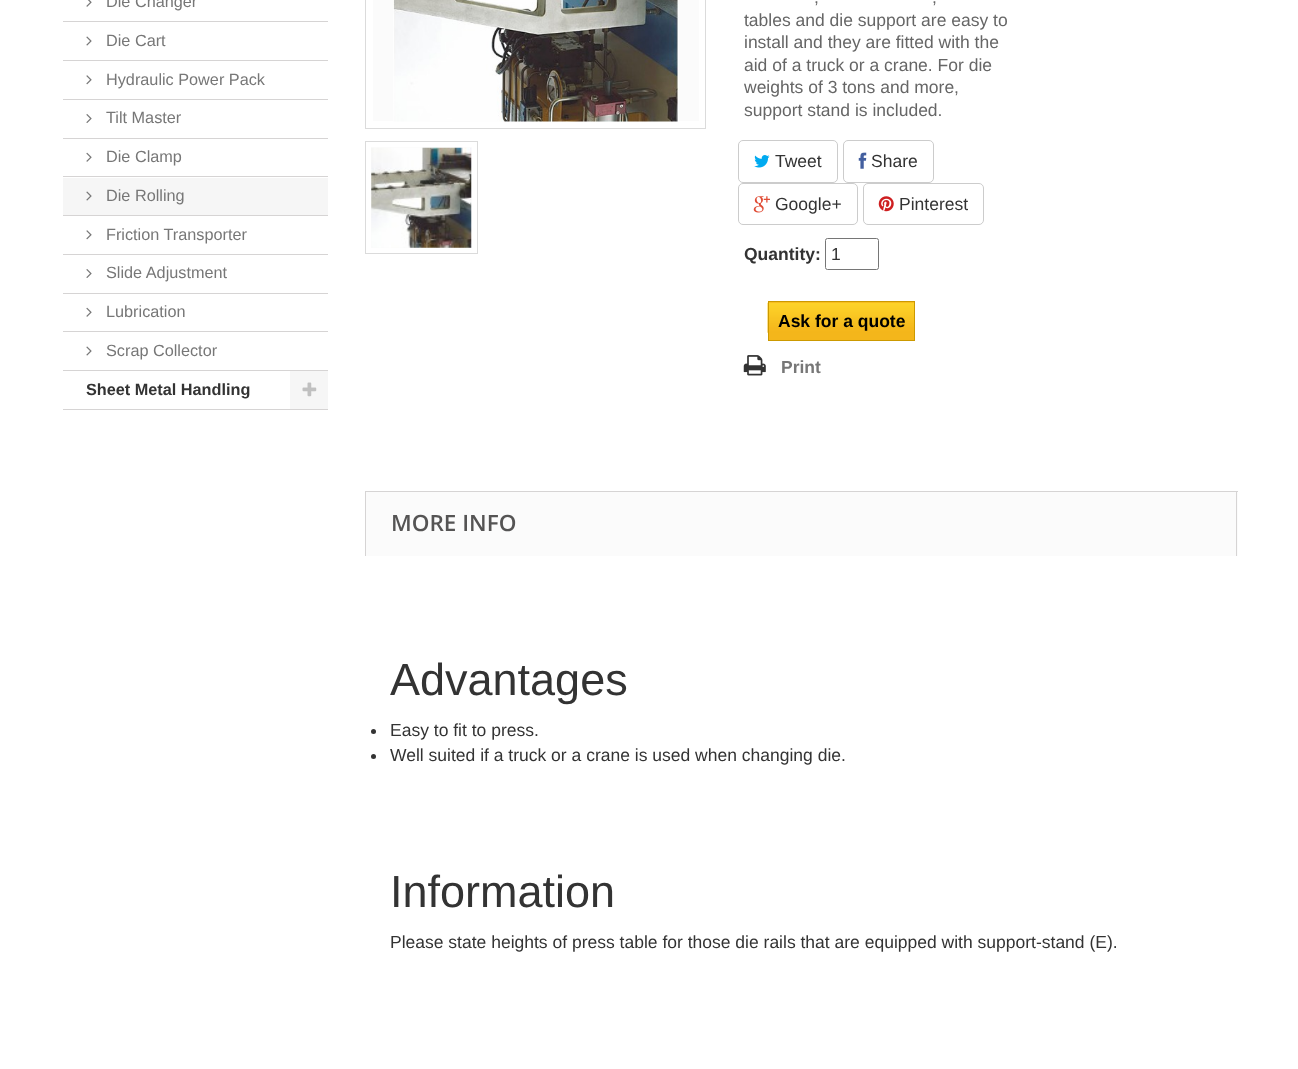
(async () => {
  const canvas = document.querySelector("canvas");
  canvas.width = 1298;
  canvas.height = 1069;
  const ctx = canvas.getContext("2d");
  ctx.miterLimit = 4;
  ctx.fontKerning = "normal";
  async function loadImage(src) {
    const img = new Image();
    img.src = src;
    await img.decode();
    return img;
  }

  ctx.fillStyle = "#ffffff";
  ctx.fillRect(0, 0, 1298, 1069);
  ctx.fillStyle = "#d6d4d4";
  ctx.fillRect(63, 21, 265, 1);
  ctx.drawImage(await loadImage("img/1.png"), 86, 0, 6, 7);
  ctx.fillRect(63, 60, 265, 1);
  ctx.drawImage(await loadImage("img/2.png"), 86, 36, 6, 10);
  ctx.fillRect(63, 99, 265, 1);
  ctx.drawImage(await loadImage("img/3.png"), 86, 75, 6, 10);
  ctx.fillRect(63, 138, 265, 1);
  ctx.drawImage(await loadImage("img/4.png"), 86, 114, 6, 9);
  ctx.fillRect(63, 176, 265, 1);
  ctx.drawImage(await loadImage("img/5.png"), 86, 152, 6, 10);
  ctx.fillStyle = "#f6f6f6";
  ctx.fillRect(63, 178, 265, 37);
  ctx.fillStyle = "#d6d4d4";
  ctx.fillRect(63, 215, 265, 1);
  ctx.drawImage(await loadImage("img/6.png"), 86, 191, 6, 10);
  ctx.fillRect(63, 254, 265, 1);
  ctx.drawImage(await loadImage("img/3.png"), 86, 230, 6, 10);
  ctx.fillRect(63, 293, 265, 1);
  ctx.drawImage(await loadImage("img/4.png"), 86, 269, 6, 9);
  ctx.fillRect(63, 331, 265, 1);
  ctx.drawImage(await loadImage("img/5.png"), 86, 307, 6, 10);
  ctx.fillRect(63, 370, 265, 1);
  ctx.drawImage(await loadImage("img/2.png"), 86, 346, 6, 10);
  ctx.fillRect(63, 409, 265, 1);
  ctx.fillStyle = "#f6f6f6";
  ctx.fillRect(290, 371, 38, 38);
  ctx.drawImage(await loadImage("img/7.png"), 302, 382, 15, 15);
  ctx.strokeStyle = "#dbdbdb";
  ctx.strokeRect(365.5, -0.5, 340, 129);
  ctx.fillStyle = "#fbfbfb";
  ctx.fillRect(373, 0, 326, 121);
  ctx.drawImage(await loadImage("img/8.png"), 393, 0, 286, 122);
  ctx.strokeRect(365.5, 141.5, 112, 112);
  ctx.fillRect(371, 147, 101, 101);
  ctx.drawImage(await loadImage("img/9.png"), 371, 147, 101, 101);
  ctx.beginPath();
  ctx.roundRect(738.5, 140.5, 99, 42, 4.5);
  ctx.strokeStyle = "#cccccc";
  ctx.stroke();
  ctx.drawImage(await loadImage("img/10.png"), 754, 155, 16, 13);
  ctx.beginPath();
  ctx.roundRect(843.5, 140.5, 90, 42, 4.5);
  ctx.stroke();
  ctx.drawImage(await loadImage("img/11.png"), 858, 152, 9, 17);
  ctx.beginPath();
  ctx.roundRect(738.5, 183.5, 119, 41, 4.5);
  ctx.stroke();
  ctx.drawImage(await loadImage("img/12.png"), 753, 196, 17, 17);
  ctx.beginPath();
  ctx.roundRect(863.5, 183.5, 120, 41, 4.5);
  ctx.stroke();
  ctx.drawImage(await loadImage("img/13.png"), 878, 196, 16, 16);
  ctx.beginPath();
  ctx.roundRect(825.5, 238.5, 53, 31, 2);
  ctx.strokeStyle = "#767676";
  ctx.stroke();
  ctx.fillStyle = "#f4b61b";
  ctx.fillRect(769, 302, 145, 38);
  ctx.drawImage(await loadImage("img/14.png"), 767, 302, 147, 31);
  ctx.strokeStyle = "#cc9900";
  ctx.strokeRect(768.5, 301.5, 146, 39);
  ctx.drawImage(await loadImage("img/15.png"), 743, 355, 23, 21);
  for (const [x, y, w, h, color] of [
    [366, 492, 872, 64, "#fbfbfb"],
    [365, 491, 873, 1, "#d6d4d4"],
    [1236, 491, 1, 65, "#d6d4d4"],
    [365, 491, 1, 65, "#d6d4d4"],
  ]) {
    ctx.fillStyle = color;
    ctx.fillRect(x, y, w, h);
  }
  ctx.fillStyle = "#333333";
  ctx.beginPath();
  ctx.arc(373.5, 731.5, 2.5, 0, Math.PI * 2);
  ctx.fill();
  ctx.beginPath();
  ctx.arc(373.5, 756.5, 2.5, 0, Math.PI * 2);
  ctx.fill();
  ctx.font = "16.25px Liberation Sans";
  ctx.fillStyle = "#777777";
  for (const [text, x, y] of [
    ["Die Changer", 106, 7],
    ["Die Cart", 106, 46],
    ["Hydraulic Power Pack", 106, 85],
    ["Tilt Master", 106, 123],
    ["Die Clamp", 106, 162],
    ["Die Rolling", 106, 201],
    ["Friction Transporter", 106, 240],
    ["Slide Adjustment", 106, 278],
    ["Lubrication", 106, 317],
    ["Scrap Collector", 106, 356],
  ]) {
    ctx.fillText(text, x, y);
  }
  ctx.font = "bold 16.25px Liberation Sans";
  ctx.fillStyle = "#333333";
  ctx.fillText("Sheet Metal Handling", 86, 395);
  ctx.font = "17.5px Liberation Sans";
  ctx.fillStyle = "#666666";
  for (const [text, x, y] of [
    [",", 814, 3],
    [",", 932, 3],
    ["tables and die support are easy to", 744, 26],
    ["install and they are fitted with the", 744, 48],
    ["aid of a truck or a crane. For die", 744, 71],
    ["weights of 3 tons and more,", 744, 93],
    ["support stand is included.", 744, 116],
  ]) {
    ctx.fillText(text, x, y);
  }
  ctx.fillStyle = "#333333";
  for (const [text, x, y] of [
    ["Tweet", 775, 167],
    ["Share", 871, 167],
    ["Google+", 775, 210],
    ["Pinterest", 899, 210],
  ]) {
    ctx.fillText(text, x, y);
  }
  ctx.font = "bold 17.5px Liberation Sans";
  ctx.fillText("Quantity:", 744, 260);
  ctx.font = "17.5px Liberation Sans";
  ctx.fillText("1", 831, 260);
  ctx.font = "bold 17.5px Liberation Sans";
  ctx.fillStyle = "#000000";
  ctx.fillText("Ask for a quote", 778, 327);
  ctx.fillStyle = "#777777";
  ctx.fillText("Print", 781, 373);
  ctx.font = "600 22.5px Open Sans";
  ctx.fillStyle = "#555454";
  ctx.fillText("MORE INFO", 391, 531);
  ctx.font = "45px Liberation Sans";
  ctx.fillStyle = "#333333";
  ctx.fillText("Advantages", 390, 695);
  ctx.font = "17.5px Liberation Sans";
  ctx.fillText("Easy to fit to press.", 390, 736);
  ctx.fillText("Well suited if a truck or a crane is used when changing die.", 390, 761);
  ctx.font = "45px Liberation Sans";
  ctx.fillText("Information", 390, 907);
  ctx.font = "17.5px Liberation Sans";
  ctx.fillText("Please state heights of press table for those die rails that are equipped with support-stand (E).", 390, 948);
})();
